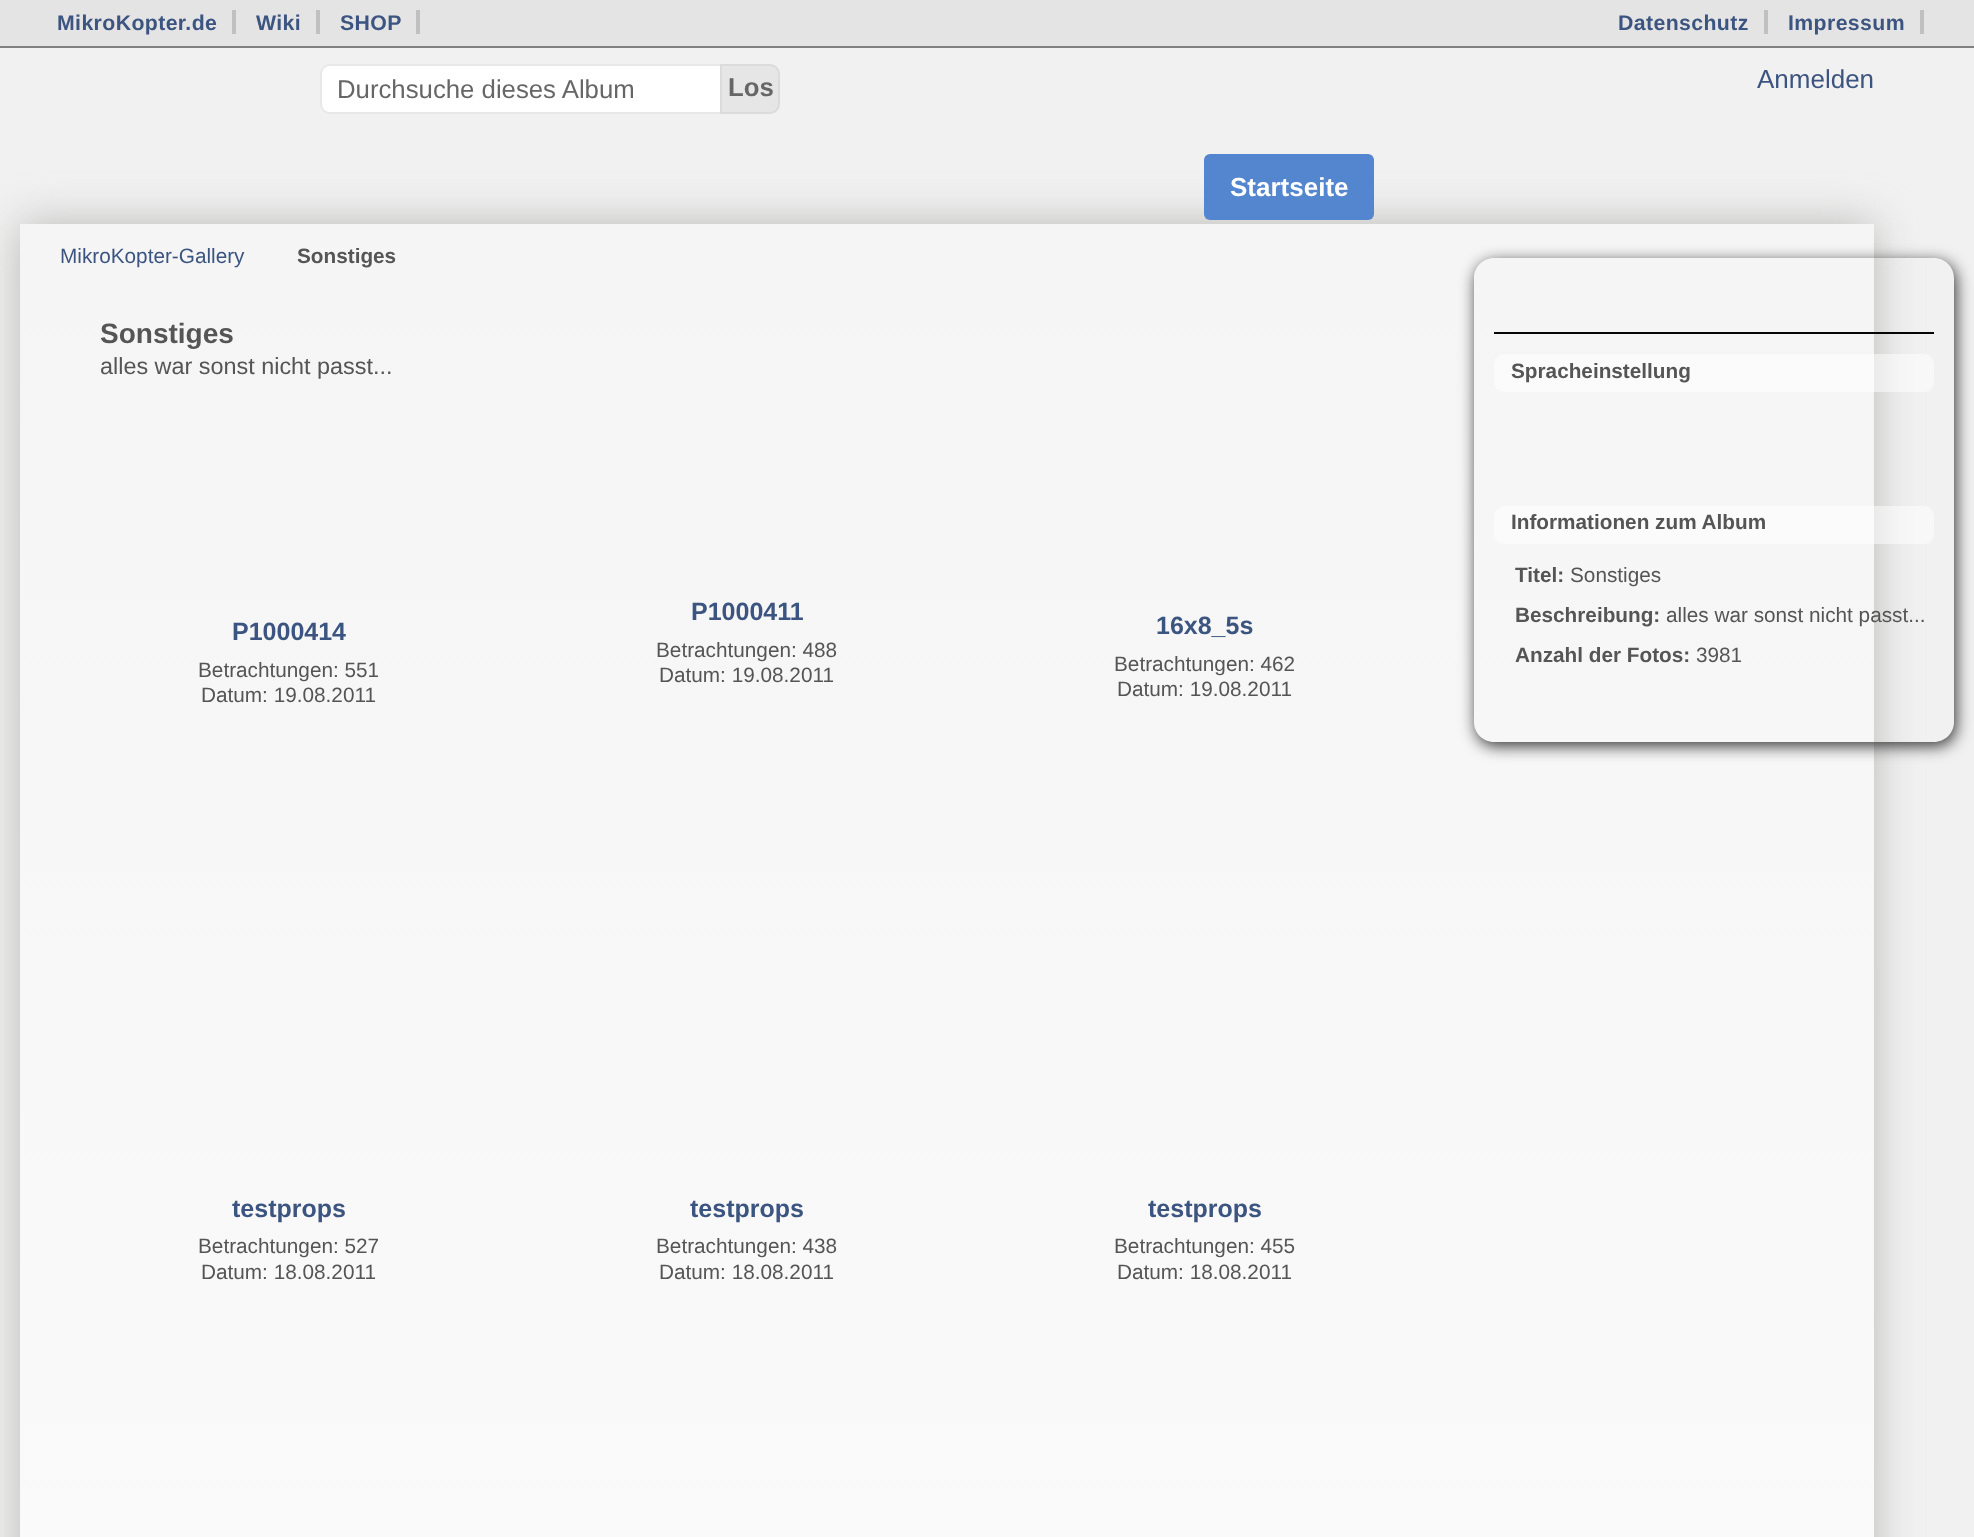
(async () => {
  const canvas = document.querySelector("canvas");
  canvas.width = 1974;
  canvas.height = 1537;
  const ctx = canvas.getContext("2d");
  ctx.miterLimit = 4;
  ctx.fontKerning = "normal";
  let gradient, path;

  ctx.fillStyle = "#f1f1f1";
  ctx.fillRect(0, 0, 1974, 1537);
  for (const [x, y, w, h, color] of [
    [0, 0, 1974, 46, "#e4e4e4"],
    [0, 46, 1974, 2, "#7f8080"],
    [232, 10, 4, 24, "#c0c0c0"],
    [316, 10, 4, 24, "#c0c0c0"],
    [416, 10, 4, 24, "#c0c0c0"],
    [1764, 10, 4, 24, "#c0c0c0"],
    [1920, 10, 4, 24, "#c0c0c0"],
  ]) {
    ctx.fillStyle = color;
    ctx.fillRect(x, y, w, h);
  }
  ctx.fillStyle = "#ffffff";
  ctx.beginPath();
  ctx.roundRect(321, 65, 400, 48, [9, 0, 0, 9]);
  ctx.fill();
  ctx.strokeStyle = "#e8e8e8";
  ctx.lineWidth = 2;
  ctx.stroke();
  ctx.fillStyle = "#e6e6e6";
  ctx.beginPath();
  ctx.roundRect(721, 65, 58, 48, [0, 9, 9, 0]);
  ctx.fill();
  ctx.strokeStyle = "#dbdbdb";
  ctx.stroke();
  ctx.fillStyle = "#b8b9b6";
  ctx.filter = "blur(22px)";
  ctx.beginPath();
  ctx.rect(20, 224, 1854, 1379);
  ctx.fill();
  ctx.filter = "none";
  ctx.fillStyle = "#5485cf";
  ctx.beginPath();
  ctx.roundRect(1204, 154, 170, 66, 6);
  ctx.fill();
  gradient = ctx.createLinearGradient(947, 224, 947, 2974);
  gradient.addColorStop(0, "#f5f5f5");
  gradient.addColorStop(1, "#ffffff");
  ctx.fillStyle = gradient;
  ctx.fillRect(20, 224, 1854, 1313);
  ctx.save();
  path = new Path2D("M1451 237H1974V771H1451ZM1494 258H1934C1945 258 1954 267 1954 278V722C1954 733 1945 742 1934 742H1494C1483 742 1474 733 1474 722V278C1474 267 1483 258 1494 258Z");
  ctx.clip(path, "evenodd");
  ctx.fillStyle = "#333333";
  ctx.filter = "blur(8px)";
  ctx.beginPath();
  ctx.roundRect(1476, 262, 480, 484, 20);
  ctx.fill();
  ctx.filter = "none";
  ctx.restore();
  ctx.fillStyle = "#050505";
  ctx.fillRect(1494, 332, 440, 2);
  ctx.fillStyle = "rgba(255, 255, 255, 0.5)";
  ctx.beginPath();
  ctx.roundRect(1494, 354, 440, 38, 10);
  ctx.fill();
  ctx.beginPath();
  ctx.roundRect(1494, 506, 440, 38, 10);
  ctx.fill();
  ctx.letterSpacing = "0.4px";
  ctx.font = "bold 21.25px Liberation Sans";
  ctx.fillStyle = "#3c5580";
  for (const [text, x, y] of [
    ["MikroKopter.de", 57, 30],
    ["Wiki", 256, 30],
    ["SHOP", 340, 30],
    ["Datenschutz", 1618, 30],
    ["Impressum", 1788, 30],
  ]) {
    ctx.fillText(text, x, y);
  }
  ctx.letterSpacing = "0px";
  ctx.font = "25.75px Liberation Sans";
  ctx.fillStyle = "#666666";
  ctx.fillText("Durchsuche dieses Album", 337, 98);
  ctx.font = "bold 25.75px Liberation Sans";
  ctx.fillText("Los", 728, 96);
  ctx.font = "26px Liberation Sans";
  ctx.fillStyle = "#3c5580";
  ctx.fillText("Anmelden", 1757, 88);
  ctx.font = "bold 26px Liberation Sans";
  ctx.fillStyle = "#ffffff";
  ctx.fillText("Startseite", 1230, 196);
  ctx.font = "20.75px Liberation Sans";
  ctx.fillStyle = "#3c5580";
  ctx.fillText("MikroKopter-Gallery", 60, 263);
  ctx.font = "bold 20.75px Liberation Sans";
  ctx.fillStyle = "#555555";
  ctx.fillText("Sonstiges", 297, 263);
  ctx.font = "bold 28px Liberation Sans";
  ctx.fillText("Sonstiges", 100, 343);
  ctx.font = "23.4px Liberation Sans";
  ctx.fillText("alles war sonst nicht passt...", 100, 374);
  ctx.font = "bold 25px Liberation Sans";
  ctx.fillStyle = "#3c5580";
  ctx.fillText("P1000414", 232, 640);
  ctx.font = "20.75px Liberation Sans";
  ctx.fillStyle = "#555555";
  ctx.fillText("Betrachtungen: 551", 198, 677);
  ctx.fillText("Datum: 19.08.2011", 201, 702);
  ctx.font = "bold 25px Liberation Sans";
  ctx.fillStyle = "#3c5580";
  ctx.fillText("P1000411", 691, 620);
  ctx.font = "20.75px Liberation Sans";
  ctx.fillStyle = "#555555";
  ctx.fillText("Betrachtungen: 488", 656, 657);
  ctx.fillText("Datum: 19.08.2011", 659, 682);
  ctx.font = "bold 25px Liberation Sans";
  ctx.fillStyle = "#3c5580";
  ctx.fillText("16x8_5s", 1156, 634);
  ctx.font = "20.75px Liberation Sans";
  ctx.fillStyle = "#555555";
  ctx.fillText("Betrachtungen: 462", 1114, 671);
  ctx.fillText("Datum: 19.08.2011", 1117, 696);
  ctx.font = "bold 25px Liberation Sans";
  ctx.fillStyle = "#3c5580";
  ctx.fillText("testprops", 232, 1217);
  ctx.font = "20.75px Liberation Sans";
  ctx.fillStyle = "#555555";
  ctx.fillText("Betrachtungen: 527", 198, 1253);
  ctx.fillText("Datum: 18.08.2011", 201, 1279);
  ctx.font = "bold 25px Liberation Sans";
  ctx.fillStyle = "#3c5580";
  ctx.fillText("testprops", 690, 1217);
  ctx.font = "20.75px Liberation Sans";
  ctx.fillStyle = "#555555";
  ctx.fillText("Betrachtungen: 438", 656, 1253);
  ctx.fillText("Datum: 18.08.2011", 659, 1279);
  ctx.font = "bold 25px Liberation Sans";
  ctx.fillStyle = "#3c5580";
  ctx.fillText("testprops", 1148, 1217);
  ctx.font = "20.75px Liberation Sans";
  ctx.fillStyle = "#555555";
  ctx.fillText("Betrachtungen: 455", 1114, 1253);
  ctx.fillText("Datum: 18.08.2011", 1117, 1279);
  ctx.font = "bold 20.75px Liberation Sans";
  for (const [text, x, y] of [
    ["Spracheinstellung", 1511, 378],
    ["Informationen zum Album", 1511, 529],
    ["Titel:", 1515, 582],
  ]) {
    ctx.fillText(text, x, y);
  }
  ctx.font = "20.75px Liberation Sans";
  ctx.fillText("Sonstiges", 1570, 582);
  ctx.font = "bold 20.75px Liberation Sans";
  ctx.fillText("Beschreibung:", 1515, 622);
  ctx.font = "20.75px Liberation Sans";
  ctx.fillText("alles war sonst nicht passt...", 1666, 622);
  ctx.font = "bold 20.75px Liberation Sans";
  ctx.fillText("Anzahl der Fotos:", 1515, 662);
  ctx.font = "20.75px Liberation Sans";
  ctx.fillText("3981", 1696, 662);
})();
